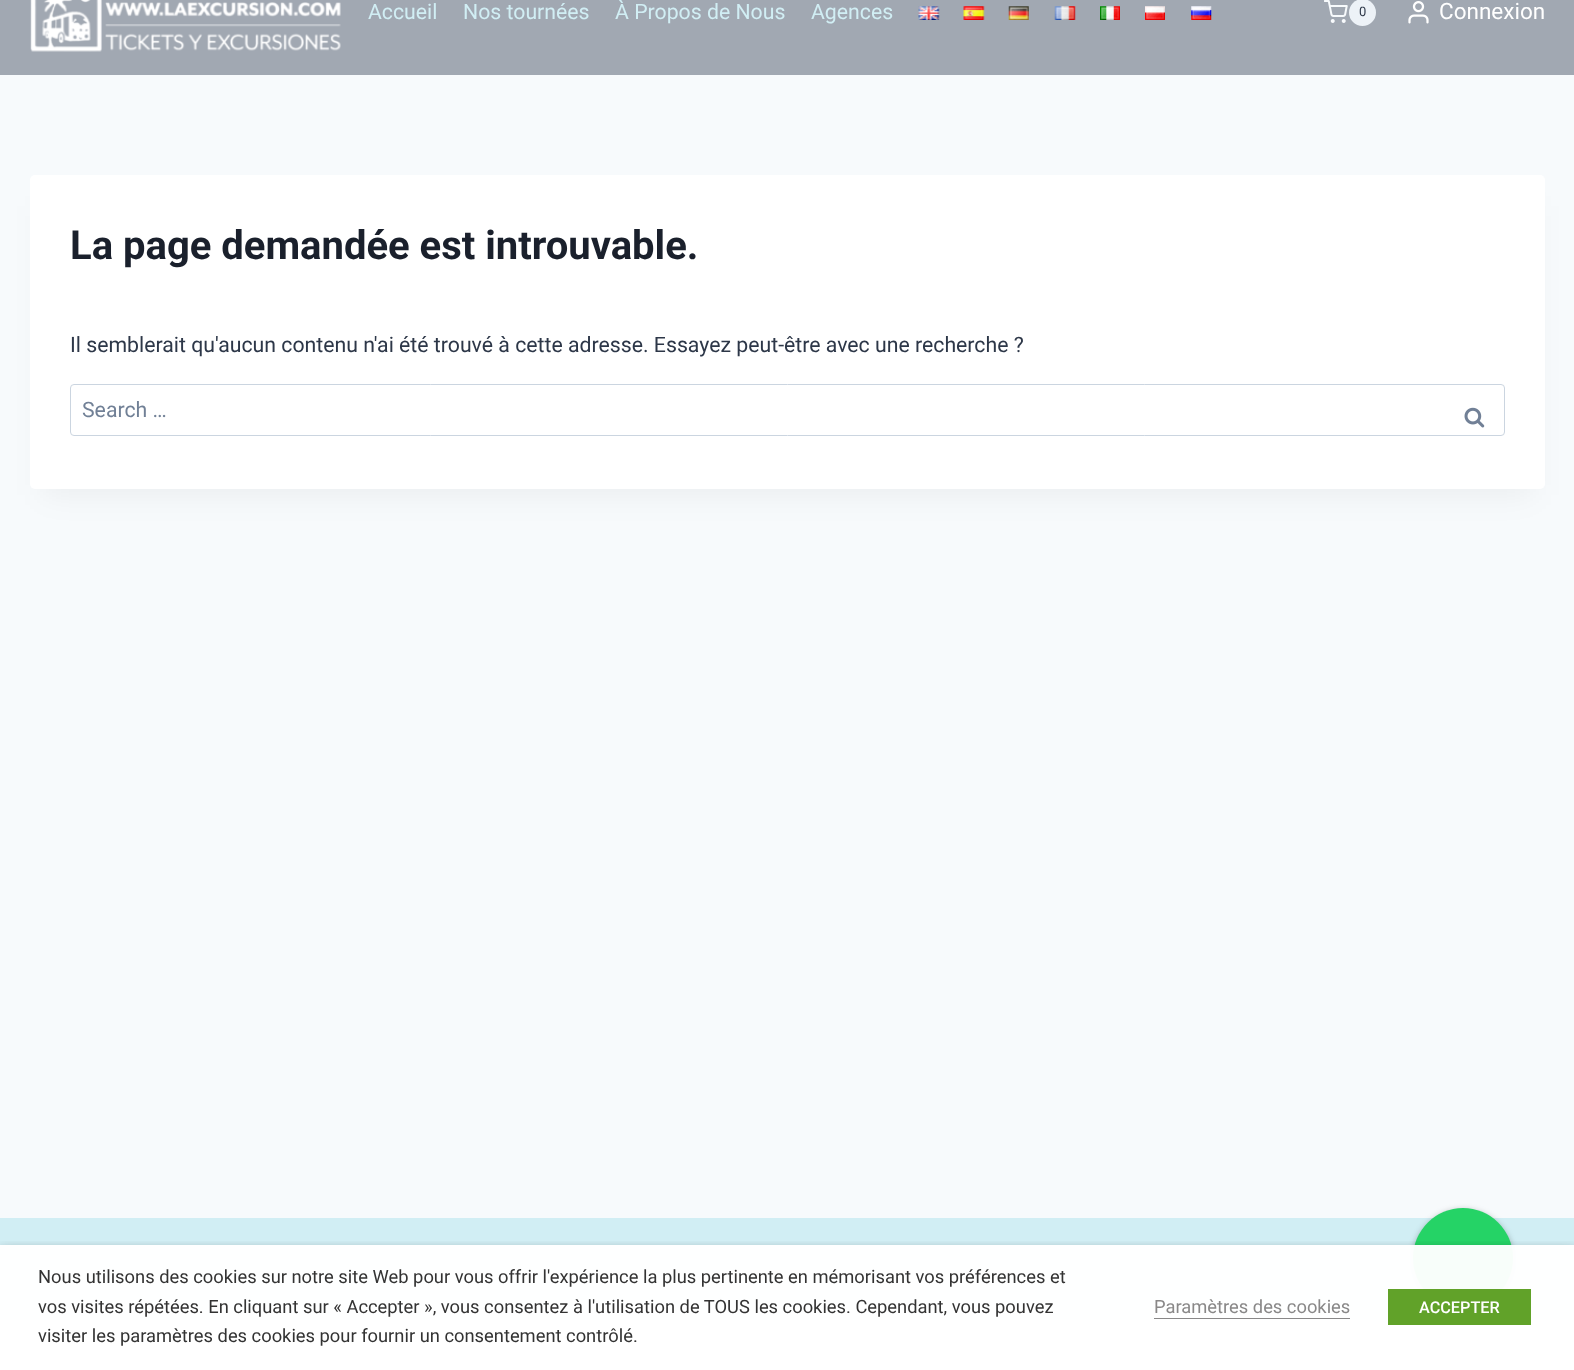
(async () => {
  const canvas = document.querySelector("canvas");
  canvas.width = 1574;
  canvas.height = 1370;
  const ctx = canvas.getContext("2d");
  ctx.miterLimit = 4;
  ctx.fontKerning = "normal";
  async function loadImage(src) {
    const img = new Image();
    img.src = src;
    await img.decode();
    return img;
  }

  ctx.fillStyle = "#f7fafc";
  ctx.fillRect(0, 0, 1574, 1370);
  ctx.fillStyle = "#a1a8b2";
  ctx.fillRect(0, 0, 1574, 75);
  ctx.drawImage(await loadImage("img/1.png"), 30, 0, 311, 52);
  ctx.drawImage(await loadImage("img/2.png"), 918, 6, 22, 14);
  ctx.drawImage(await loadImage("img/3.png"), 963, 6, 22, 14);
  ctx.drawImage(await loadImage("img/4.png"), 1008, 6, 21, 14);
  ctx.drawImage(await loadImage("img/5.png"), 1054, 6, 22, 14);
  ctx.drawImage(await loadImage("img/6.png"), 1100, 6, 20, 14);
  ctx.drawImage(await loadImage("img/7.png"), 1145, 6, 20, 14);
  ctx.drawImage(await loadImage("img/8.png"), 1191, 6, 21, 14);
  ctx.drawImage(await loadImage("img/9.png"), 1324, 0, 24, 23);
  ctx.fillStyle = "#edf2f7";
  ctx.beginPath();
  ctx.arc(1362.5, 12.5, 13.5, 0, Math.PI * 2);
  ctx.fill();
  ctx.drawImage(await loadImage("img/10.png"), 1408, 1, 21, 23);
  ctx.fillStyle = "rgba(0, 0, 0, 0.05)";
  ctx.filter = "blur(15.5px)";
  ctx.beginPath();
  ctx.rect(43, 206, 1490, 289);
  ctx.fill();
  ctx.filter = "none";
  ctx.fillStyle = "#ffffff";
  ctx.beginPath();
  ctx.roundRect(30, 175, 1515, 314, 5);
  ctx.fill();
  ctx.beginPath();
  ctx.roundRect(70.5, 384.5, 1434, 51, 3.5);
  ctx.strokeStyle = "#cbd5e0";
  ctx.stroke();
  ctx.drawImage(await loadImage("img/11.png"), 1464, 407, 21, 21);
  ctx.fillStyle = "#d1eef4";
  ctx.fillRect(0, 1218, 1574, 102);
  ctx.fillStyle = "rgba(0, 0, 0, 0.3)";
  ctx.filter = "blur(3px)";
  ctx.beginPath();
  ctx.roundRect(1413, 1210, 100, 100, 50);
  ctx.fill();
  ctx.filter = "none";
  ctx.fillStyle = "#25d366";
  ctx.beginPath();
  ctx.arc(1463, 1258, 50, 0, Math.PI * 2);
  ctx.fill();
  ctx.save();
  ctx.beginPath();
  ctx.rect(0, 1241, 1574, 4);
  ctx.clip();
  ctx.fillStyle = "rgba(0, 0, 0, 0.5)";
  ctx.filter = "blur(6px)";
  ctx.beginPath();
  ctx.rect(0, 1251, 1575, 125);
  ctx.fill();
  ctx.filter = "none";
  ctx.restore();
  for (const [x, y, w, h, color] of [
    [0, 1245, 1574, 125, "rgba(255, 255, 255, 0.97)"],
    [1154, 1318, 196, 1, "#898888"],
    [1388, 1289, 143, 36, "#61a229"],
  ]) {
    ctx.fillStyle = color;
    ctx.fillRect(x, y, w, h);
  }
  ctx.font = "21.25px Roboto";
  ctx.fillStyle = "#d1eef4";
  for (const [text, x, y] of [
    ["Accueil", 368, 19],
    ["Nos tournées", 463, 19],
    ["À Propos de Nous", 615, 19],
    ["Agences", 811, 19],
  ]) {
    ctx.fillText(text, x, y);
  }
  ctx.font = "13px Roboto";
  ctx.fillStyle = "#2d3748";
  ctx.fillText("0", 1359, 16);
  ctx.font = "22.5px Roboto";
  ctx.fillStyle = "#ffffff";
  ctx.fillText("Connexion", 1439, 19);
  ctx.font = "bold 40px Roboto";
  ctx.fillStyle = "#1a202c";
  ctx.fillText("La page demandée est introuvable.", 70, 259);
  ctx.font = "21.25px Roboto";
  ctx.fillStyle = "#2d3748";
  ctx.fillText("Il semblerait qu'aucun contenu n'ai été trouvé à cette adresse. Essayez peut-être avec une recherche ?", 70, 352);
  ctx.fillStyle = "#718096";
  ctx.fillText("Search …", 82, 417);
  ctx.font = "18.33px Roboto";
  ctx.fillStyle = "#333333";
  for (const [text, x, y] of [
    ["Nous utilisons des cookies sur notre site Web pour vous offrir l'expérience la plus pertinente en mémorisant vos préférences et", 38, 1283],
    ["vos visites répétées. En cliquant sur « Accepter », vous consentez à l'utilisation de TOUS les cookies. Cependant, vous pouvez", 38, 1313],
    ["visiter les paramètres des cookies pour fournir un consentement contrôlé.", 38, 1342],
  ]) {
    ctx.fillText(text, x, y);
  }
  ctx.fillStyle = "#898888";
  ctx.fillText("Paramètres des cookies", 1154, 1313);
  ctx.font = "500 16.25px Roboto";
  ctx.fillStyle = "#ffffff";
  ctx.fillText("ACCEPTER", 1419, 1313);
})();
